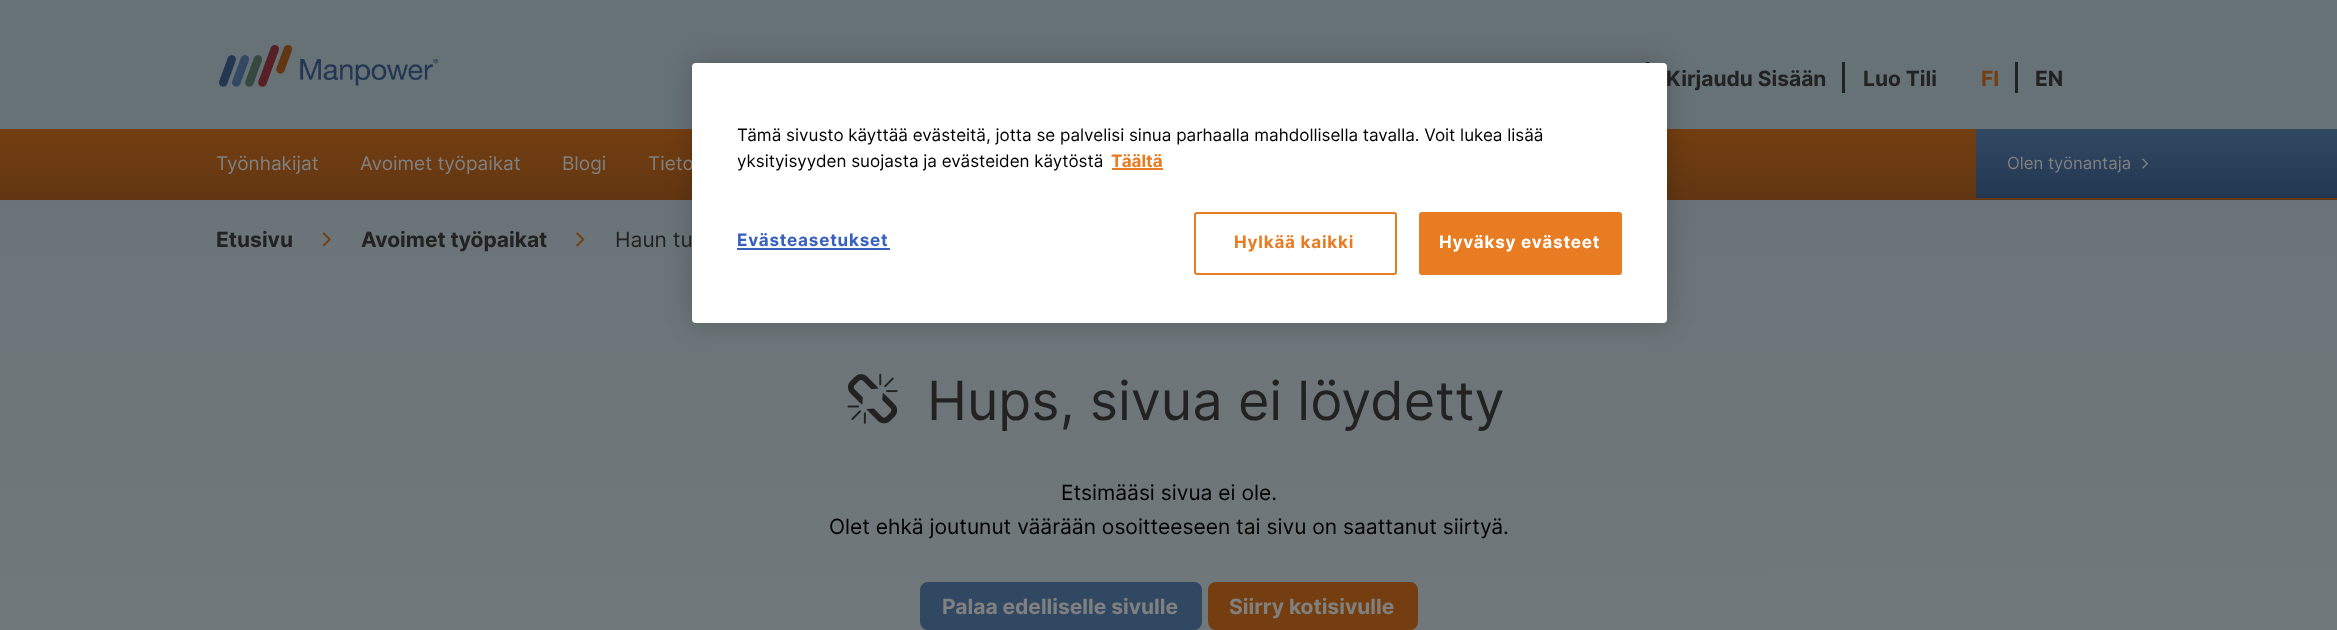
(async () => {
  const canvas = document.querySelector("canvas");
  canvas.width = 2337;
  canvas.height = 630;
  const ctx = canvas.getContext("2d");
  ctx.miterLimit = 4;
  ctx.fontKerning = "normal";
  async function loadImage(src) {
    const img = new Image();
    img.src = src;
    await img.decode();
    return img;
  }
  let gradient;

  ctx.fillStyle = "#ffffff";
  ctx.fillRect(0, 0, 2337, 630);
  gradient = ctx.createLinearGradient(1168, 0, 1169, 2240);
  gradient.addColorStop(0, "#677277");
  gradient.addColorStop(0.7, "#808080");
  ctx.fillStyle = gradient;
  ctx.fillRect(0, 200, 2337, 430);
  ctx.fillStyle = "#677277";
  ctx.fillRect(0, 0, 2337, 129);
  ctx.drawImage(await loadImage("img/1.png"), 219, 45, 219, 42);
  for (const [x, y, w, h, color] of [
    [1646, 62, 3, 1, "#222222"],
    [1842, 62, 3, 31, "#222222"],
    [2015, 62, 3, 31, "#222222"],
  ]) {
    ctx.fillStyle = color;
    ctx.fillRect(x, y, w, h);
  }
  gradient = ctx.createLinearGradient(1169, 129, 1169, 200);
  gradient.addColorStop(0, "#743e11");
  gradient.addColorStop(1, "#623712");
  ctx.fillStyle = gradient;
  ctx.fillRect(0, 129, 2337, 71);
  gradient = ctx.createLinearGradient(2156, 129, 2156, 198);
  gradient.addColorStop(0, "#314863");
  gradient.addColorStop(1, "#233752");
  ctx.fillStyle = gradient;
  ctx.fillRect(1976, 129, 361, 69);
  ctx.drawImage(await loadImage("img/2.png"), 2142, 158, 7, 11);
  ctx.drawImage(await loadImage("img/3.png"), 322, 232, 9, 15);
  ctx.drawImage(await loadImage("img/4.png"), 576, 232, 9, 15);
  ctx.drawImage(await loadImage("img/5.png"), 847, 373, 51, 51);
  ctx.fillStyle = "#314863";
  ctx.beginPath();
  ctx.roundRect(921, 583, 280, 46, 7);
  ctx.fill();
  ctx.strokeStyle = "#314863";
  ctx.lineWidth = 2;
  ctx.stroke();
  ctx.fillStyle = "#743e11";
  ctx.beginPath();
  ctx.roundRect(1209, 583, 208, 46, 7);
  ctx.fill();
  ctx.strokeStyle = "#743e11";
  ctx.stroke();
  ctx.fillStyle = "rgba(0, 0, 0, 0.2)";
  ctx.filter = "blur(13.5px)";
  ctx.beginPath();
  ctx.roundRect(692, 63, 975, 260, 4);
  ctx.fill();
  ctx.filter = "none";
  ctx.font = "bold 21px Inter";
  ctx.fillStyle = "#222222";
  ctx.fillText("Kirjaudu Sisään", 1666, 86);
  ctx.fillText("Luo Tili", 1863, 86);
  ctx.fillStyle = "#743e11";
  ctx.fillText("FI", 1981, 86);
  ctx.fillStyle = "#222222";
  ctx.fillText("EN", 2035, 86);
  ctx.font = "19px Inter";
  ctx.fillStyle = "#808080";
  for (const [text, x, y] of [
    ["Työnhakijat", 216, 170],
    ["Avoimet työpaikat", 360, 170],
    ["Blogi", 562, 170],
    ["Tieto", 648, 170],
  ]) {
    ctx.fillText(text, x, y);
  }
  ctx.font = "16.75px Inter";
  ctx.fillText("Olen työnantaja", 2007, 169);
  ctx.font = "bold 21px Inter";
  ctx.fillStyle = "#222222";
  ctx.fillText("Etusivu", 216, 247);
  ctx.fillText("Avoimet työpaikat", 361, 247);
  ctx.font = "21px Inter";
  ctx.fillText("Haun tu", 615, 247);
  ctx.font = "54px Inter";
  ctx.fillText("Hups, sivua ei löydetty", 927, 420);
  ctx.font = "21px Inter";
  ctx.fillStyle = "#000000";
  ctx.fillText("Etsimääsi sivua ei ole.", 1061, 500);
  ctx.fillText("Olet ehkä joutunut väärään osoitteeseen tai sivu on saattanut siirtyä.", 829, 534);
  ctx.font = "bold 21px Inter";
  ctx.fillStyle = "#808080";
  ctx.fillText("Palaa edelliselle sivulle", 942, 614);
  ctx.fillText("Siirry kotisivulle", 1229, 614);
  ctx.fillStyle = "#ffffff";
  ctx.beginPath();
  ctx.roundRect(692, 63, 975, 260, 4);
  ctx.fill();
  ctx.font = "17.05px Inter";
  ctx.fillStyle = "#000000";
  ctx.fillText("Tämä sivusto käyttää evästeitä, jotta se palvelisi sinua parhaalla mahdollisella tavalla. Voit lukea lisää", 737, 141);
  ctx.fillText("yksityisyyden suojasta ja evästeiden käytöstä", 737, 167);
  ctx.font = "bold 17.05px Inter";
  ctx.fillStyle = "#e77c22";
  ctx.fillText("Täältä", 1111, 167);
  ctx.fillRect(1112, 168, 51, 2);
  ctx.letterSpacing = "0.8px";
  ctx.fillStyle = "#3860be";
  ctx.fillText("Evästeasetukset", 737, 246);
  ctx.fillRect(737, 248, 153, 2);
  ctx.beginPath();
  ctx.roundRect(1195, 213, 201, 61, 2);
  ctx.strokeStyle = "#e77c22";
  ctx.stroke();
  ctx.fillStyle = "#e77c22";
  ctx.fillText("Hylkää kaikki", 1234, 248);
  ctx.beginPath();
  ctx.roundRect(1420, 213, 201, 61, 2);
  ctx.fill();
  ctx.stroke();
  ctx.fillStyle = "#ffffff";
  ctx.fillText("Hyväksy evästeet", 1439, 248);
})();
